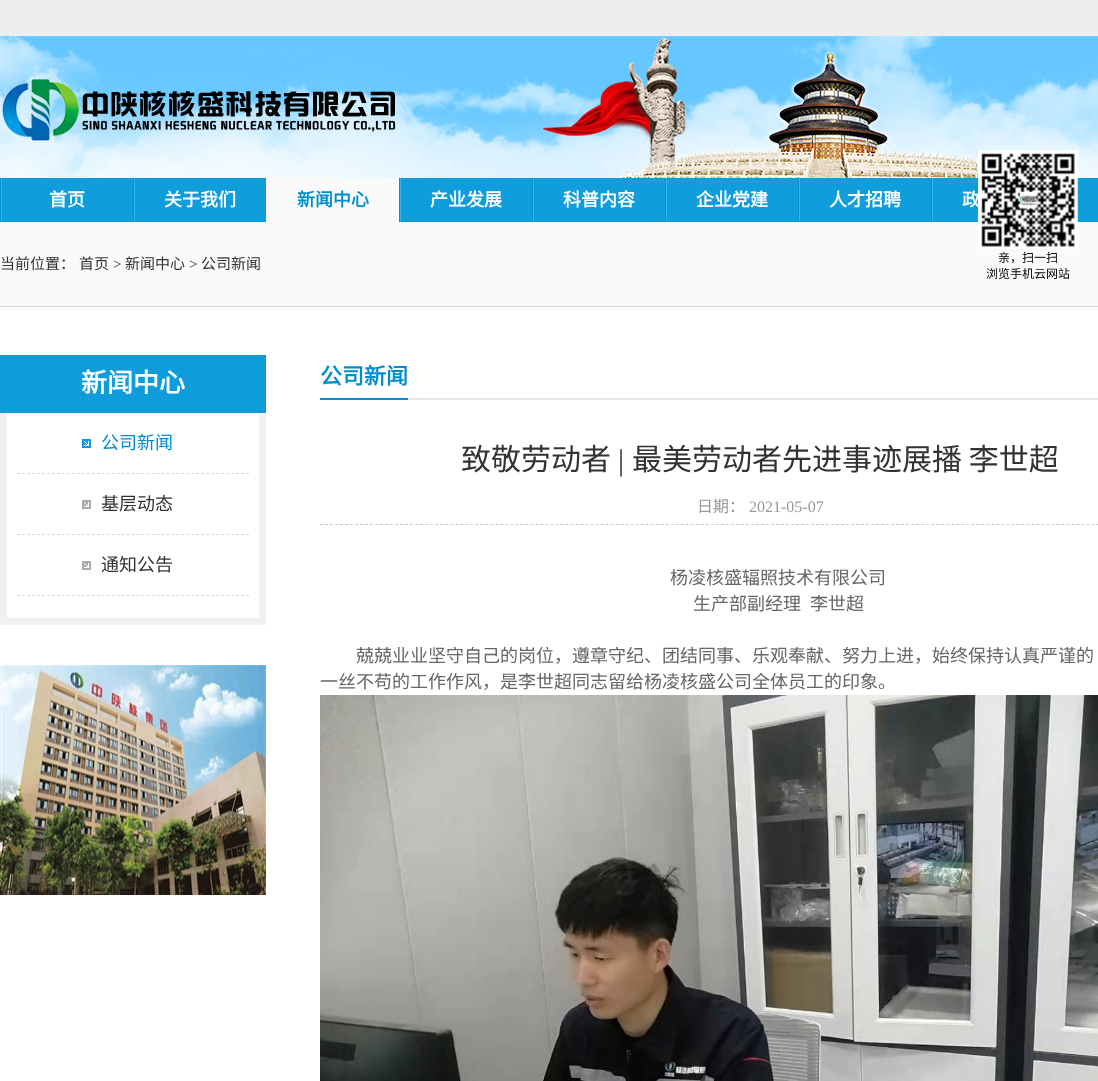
(async () => {
  const canvas = document.querySelector("canvas");
  canvas.width = 1098;
  canvas.height = 1081;
  const ctx = canvas.getContext("2d");
  ctx.miterLimit = 4;
  ctx.fontKerning = "normal";
  async function loadImage(src) {
    const img = new Image();
    img.src = src;
    await img.decode();
    return img;
  }
  let path;

  ctx.fillStyle = "#ffffff";
  ctx.fillRect(0, 0, 1098, 1081);
  ctx.fillStyle = "#eeeeee";
  ctx.fillRect(0, 0, 1098, 36);
  ctx.drawImage(await loadImage("img/1.png"), 0, 36, 1098, 142);
  ctx.drawImage(await loadImage("img/2.png"), 2, 79, 394, 62);
  ctx.fillStyle = "#0f9ddc";
  ctx.fillRect(0, 178, 1098, 44);
  ctx.drawImage(await loadImage("img/3.png"), 0, 178, 2, 44);
  ctx.drawImage(await loadImage("img/3.png"), 133, 178, 2, 44);
  ctx.fillStyle = "#fafafa";
  ctx.fillRect(266, 178, 133, 44);
  ctx.drawImage(await loadImage("img/3.png"), 399, 178, 2, 44);
  ctx.drawImage(await loadImage("img/3.png"), 532, 178, 2, 44);
  ctx.drawImage(await loadImage("img/3.png"), 665, 178, 2, 44);
  ctx.drawImage(await loadImage("img/3.png"), 798, 178, 2, 44);
  ctx.drawImage(await loadImage("img/3.png"), 931, 178, 2, 44);
  for (const [x, y, w, h, color] of [
    [0, 222, 1098, 84, "#fafafa"],
    [0, 306, 1098, 1, "#d9d9d9"],
    [0, 355, 266, 58, "#0f9cdb"],
    [259, 413, 7, 212, "#f1f1f1"],
    [0, 618, 266, 7, "#f1f1f1"],
    [0, 413, 7, 212, "#f1f1f1"],
  ]) {
    ctx.fillStyle = color;
    ctx.fillRect(x, y, w, h);
  }
  path = new Path2D("M17 473.5H249");
  ctx.strokeStyle = "#dadada";
  ctx.setLineDash([3, 1.98]);
  ctx.stroke(path);
  ctx.drawImage(await loadImage("img/5.png"), 82, 439, 9, 9);
  path = new Path2D("M17 534.5H249");
  ctx.stroke(path);
  ctx.drawImage(await loadImage("img/6.png"), 82, 500, 9, 9);
  path = new Path2D("M17 595.5H249");
  ctx.stroke(path);
  ctx.drawImage(await loadImage("img/6.png"), 82, 561, 9, 9);
  ctx.drawImage(await loadImage("img/7.png"), 0, 665, 266, 230);
  ctx.fillStyle = "#e5e5e5";
  ctx.fillRect(408, 398, 690, 2);
  ctx.fillStyle = "#008dcd";
  ctx.fillRect(320, 398, 88, 2);
  path = new Path2D("M320 524.5H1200");
  ctx.strokeStyle = "#c9c9c9";
  ctx.setLineDash([3, 2.01]);
  ctx.stroke(path);
  ctx.drawImage(await loadImage("img/8.png"), 320, 695, 778, 386);
  ctx.font = "bold 18px Noto Sans CJK SC";
  ctx.fillStyle = "#ffffff";
  ctx.fillText("首页", 49, 206);
  ctx.fillText("关于我们", 164, 206);
  ctx.fillStyle = "#008dcd";
  ctx.fillText("新闻中心", 297, 206);
  ctx.fillStyle = "#ffffff";
  for (const [text, x, y] of [
    ["产业发展", 430, 206],
    ["科普内容", 563, 206],
    ["企业党建", 696, 206],
    ["人才招聘", 829, 206],
    ["政", 962, 206],
  ]) {
    ctx.fillText(text, x, y);
  }
  ctx.drawImage(await loadImage("img/4.png"), 978, 150, 100, 99);
  ctx.font = "12px Noto Sans CJK SC";
  ctx.fillStyle = "#000000";
  ctx.fillText("亲，扫一扫", 998, 262);
  ctx.fillText("浏览手机云网站", 986, 278);
  ctx.font = "15px Noto Sans CJK SC";
  ctx.fillStyle = "#333333";
  ctx.fillText("当前位置：", 0, 269);
  ctx.fillText("首页", 79, 269);
  ctx.font = "15px Liberation Serif";
  ctx.fillText(">", 113, 269);
  ctx.font = "15px Noto Sans CJK SC";
  ctx.fillText("新闻中心", 125, 269);
  ctx.font = "15px Liberation Serif";
  ctx.fillText(">", 189, 269);
  ctx.font = "15px Noto Sans CJK SC";
  ctx.fillText("公司新闻", 201, 269);
  ctx.font = "bold 26px Noto Sans CJK SC";
  ctx.fillStyle = "#ffffff";
  ctx.fillText("新闻中心", 81, 392);
  ctx.font = "18px Noto Sans CJK SC";
  ctx.fillStyle = "#008dcd";
  ctx.fillText("公司新闻", 101, 449);
  ctx.fillStyle = "#333333";
  ctx.fillText("基层动态", 101, 510);
  ctx.fillText("通知公告", 101, 571);
  ctx.font = "bold 22px Noto Sans CJK SC";
  ctx.fillStyle = "#008dcd";
  ctx.fillText("公司新闻", 320, 384);
  ctx.font = "30px Noto Sans CJK SC";
  ctx.fillStyle = "#333333";
  ctx.fillText("致敬劳动者", 461, 470);
  ctx.font = "30px Liberation Serif";
  ctx.fillText("|", 618, 470);
  ctx.font = "30px Noto Sans CJK SC";
  ctx.fillText("最美劳动者先进事迹展播 李世超", 632, 470);
  ctx.font = "16px Noto Sans CJK SC";
  ctx.fillStyle = "#999999";
  ctx.fillText("日期：", 697, 512);
  ctx.font = "16px Liberation Serif";
  ctx.fillText("2021-05-07", 749, 512);
  ctx.font = "18px Noto Sans CJK SC";
  ctx.fillStyle = "#666666";
  for (const [text, x, y] of [
    ["杨凌核盛辐照技术有限公司", 670, 584],
    ["生产部副经理", 693, 610],
    ["李世超", 810, 610],
    ["兢兢业业坚守自己的岗位，遵章守纪、团结同事、乐观奉献、努力上进，始终保持认真严谨的", 356, 662],
    ["一丝不苟的工作作风，是李世超同志留给杨凌核盛公司全体员工的印象。", 320, 688],
  ]) {
    ctx.fillText(text, x, y);
  }
})();
